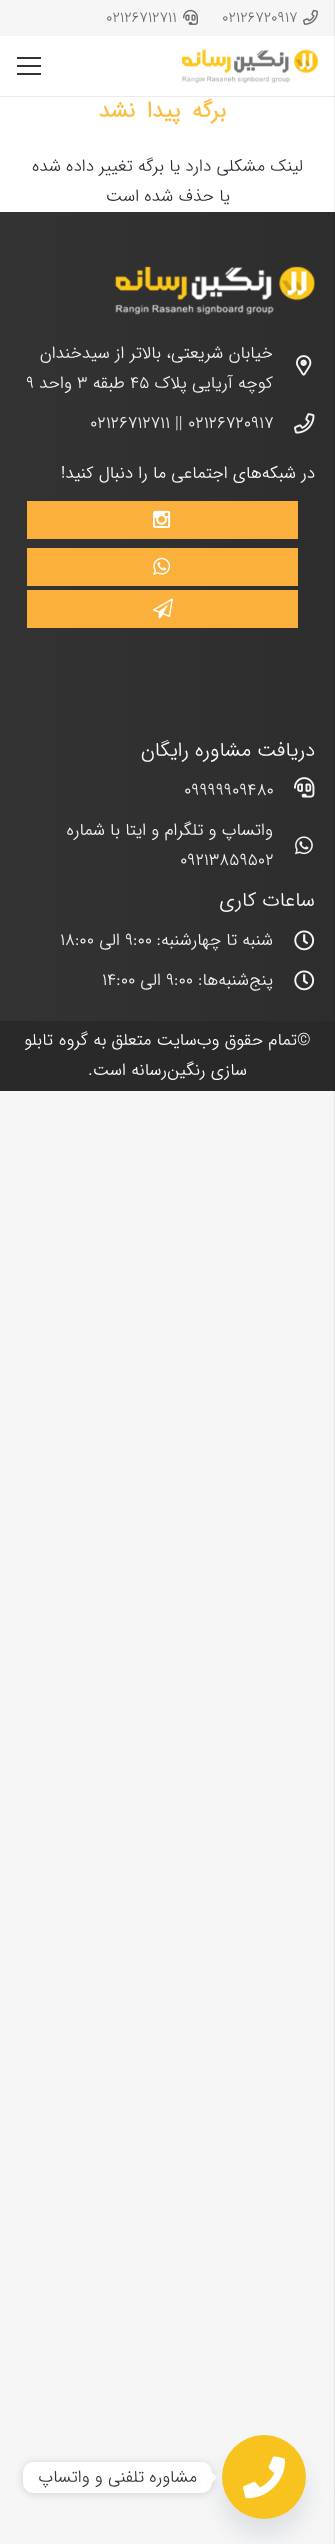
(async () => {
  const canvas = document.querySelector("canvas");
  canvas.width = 335;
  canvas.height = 2544;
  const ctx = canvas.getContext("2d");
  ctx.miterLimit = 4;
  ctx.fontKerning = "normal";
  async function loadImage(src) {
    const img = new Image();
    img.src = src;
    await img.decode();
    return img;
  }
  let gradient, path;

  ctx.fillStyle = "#f6f6f6";
  ctx.fillRect(0, 0, 335, 2544);
  for (const [x, y, w, h, color] of [
    [334, 1091, 1, 1453, "#e2e2e2"],
    [0, 36, 334, 176, "#ffffff"],
    [334, 36, 1, 176, "#ebebeb"],
    [334, 0, 1, 36, "#e2e2e2"],
  ]) {
    ctx.fillStyle = color;
    ctx.fillRect(x, y, w, h);
  }
  ctx.drawImage(await loadImage("img/1.png"), 303, 9, 15, 16);
  ctx.drawImage(await loadImage("img/2.png"), 183, 9, 15, 16);
  ctx.fillStyle = "#ebebeb";
  ctx.fillRect(0, 96, 335, 1);
  ctx.fillStyle = "#d8d8d8";
  ctx.fillRect(334, 96, 1, 1);
  ctx.drawImage(await loadImage("img/3.png"), 182, 49, 136, 34);
  for (const [x, y, w, h, color] of [
    [17, 65, 24, 2, "#333333"],
    [17, 57, 24, 2, "#333333"],
    [17, 73, 24, 2, "#333333"],
  ]) {
    ctx.fillStyle = color;
    ctx.fillRect(x, y, w, h);
  }
  gradient = ctx.createLinearGradient(0, 617, 335, 617);
  gradient.addColorStop(0, "#333333");
  gradient.addColorStop(1, "#2e2d2d");
  ctx.fillStyle = gradient;
  ctx.fillRect(0, 212, 334, 809);
  gradient = ctx.createLinearGradient(0, 617, 335, 617);
  gradient.addColorStop(0, "#2f2f2f");
  gradient.addColorStop(1, "#2a2929");
  ctx.fillStyle = gradient;
  ctx.fillRect(334, 212, 1, 809);
  ctx.drawImage(await loadImage("img/4.png"), 115, 266, 200, 49);
  ctx.drawImage(await loadImage("img/5.png"), 296, 355, 16, 21);
  ctx.drawImage(await loadImage("img/6.png"), 294, 413, 21, 21);
  ctx.fillStyle = "#fbb03b";
  ctx.fillRect(27, 501, 271, 38);
  ctx.drawImage(await loadImage("img/7.png"), 153, 510, 18, 18);
  ctx.fillRect(27, 548, 271, 38);
  ctx.drawImage(await loadImage("img/8.png"), 153, 557, 18, 18);
  ctx.fillRect(27, 590, 271, 38);
  ctx.drawImage(await loadImage("img/9.png"), 153, 598, 20, 21);
  ctx.drawImage(await loadImage("img/10.png"), 294, 777, 21, 21);
  ctx.drawImage(await loadImage("img/11.png"), 295, 836, 18, 19);
  ctx.drawImage(await loadImage("img/12.png"), 294, 930, 21, 21);
  ctx.drawImage(await loadImage("img/12.png"), 294, 970, 21, 21);
  ctx.fillStyle = "#292929";
  ctx.fillRect(0, 1021, 334, 70);
  ctx.fillStyle = "#262626";
  ctx.fillRect(334, 1021, 1, 70);
  ctx.fillStyle = "rgba(0, 0, 0, 0.15)";
  ctx.filter = "blur(4px)";
  ctx.beginPath();
  ctx.roundRect(23, 2463, 189, 31, 10);
  ctx.fill();
  ctx.filter = "none";
  ctx.fillStyle = "#ffffff";
  ctx.beginPath();
  ctx.roundRect(23, 2462, 189, 31, 10);
  ctx.fill();
  path = new Path2D("M212 2482.5V2472.5L217 2477.5Z");
  ctx.fill(path);
  ctx.fillStyle = "rgba(73, 104, 126, 0.16)";
  ctx.filter = "blur(12px)";
  ctx.beginPath();
  ctx.roundRect(222, 2451, 84, 84, 42);
  ctx.fill();
  ctx.filter = "none";
  ctx.fillStyle = "#f9c31f";
  ctx.beginPath();
  ctx.arc(264, 2477, 42, 0, Math.PI * 2);
  ctx.fill();
  ctx.drawImage(await loadImage("img/13.png"), 243, 2456, 43, 43);
  ctx.font = "300 15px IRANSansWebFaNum";
  ctx.fillStyle = "#666666";
  ctx.fillText("02126720917", 222, 22);
  ctx.fillText("02126712711", 106, 22);
  ctx.letterSpacing = "-0.9px";
  ctx.wordSpacing = "6px";
  ctx.direction = "rtl";
  ctx.font = "bold 22px IRANSansWebFaNum";
  ctx.fillStyle = "#fbbe3f";
  ctx.fillText("برگه پیدا نشد", 226, 117);
  ctx.letterSpacing = "0px";
  ctx.wordSpacing = "0px";
  ctx.font = "300 17px IRANSansWebFaNum";
  ctx.fillStyle = "#2a2f35";
  for (const [text, x, y] of [
    ["لینک مشکلی دارد یا برگه تغییر", 303, 171],
    ["داده شده", 94, 171],
    ["یا حذف شده است", 230, 201],
  ]) {
    ctx.fillText(text, x, y);
  }
  ctx.fillStyle = "#f5f5f5";
  ctx.fillText("خیابان شریعتی، بالاتر از سیدخندان", 273, 358);
  ctx.fillText("کوچه آریایی پلاک", 273, 388);
  ctx.direction = "ltr";
  ctx.fillText("۴۵", 130, 388);
  ctx.direction = "rtl";
  ctx.fillText("طبقه", 125, 388);
  ctx.direction = "ltr";
  ctx.fillText("۳", 77, 388);
  ctx.direction = "rtl";
  ctx.fillText("واحد", 72, 388);
  ctx.direction = "ltr";
  for (const [text, x, y] of [
    ["۹", 26, 388],
    ["02126720917", 188, 428],
    ["||", 175, 428],
    ["02126712711", 90, 428],
  ]) {
    ctx.fillText(text, x, y);
  }
  ctx.direction = "rtl";
  ctx.fillStyle = "#ffffff";
  ctx.fillText("در شبکه‌های اجتماعی ما را دنبال کنید!", 315, 478);
  ctx.font = "300 20px IRANSansWebFaNum";
  ctx.fillText("دریافت مشاوره رایگان", 315, 756);
  ctx.direction = "ltr";
  ctx.font = "300 17px IRANSansWebFaNum";
  ctx.fillStyle = "#f5f5f5";
  ctx.fillText("09999909480", 184, 795);
  ctx.direction = "rtl";
  ctx.fillText("واتساپ و تلگرام و ایتا با شماره", 273, 835);
  ctx.direction = "ltr";
  ctx.fillText("09213859502", 180, 865);
  ctx.direction = "rtl";
  ctx.font = "300 20px IRANSansWebFaNum";
  ctx.fillStyle = "#ffffff";
  ctx.fillText("ساعات کاری", 315, 906);
  ctx.font = "300 17px IRANSansWebFaNum";
  ctx.fillStyle = "#f5f5f5";
  ctx.fillText("شنبه تا چهارشنبه:", 273, 945);
  ctx.direction = "ltr";
  ctx.fillText("۹:۰۰", 125, 945);
  ctx.direction = "rtl";
  ctx.fillText("الی", 120, 945);
  ctx.direction = "ltr";
  ctx.fillText("۱۸:۰۰", 60, 945);
  ctx.direction = "rtl";
  ctx.fillText("پنج‌شنبه‌ها:", 273, 985);
  ctx.direction = "ltr";
  ctx.fillText("۹:۰۰", 166, 985);
  ctx.direction = "rtl";
  ctx.fillText("الی", 161, 985);
  ctx.direction = "ltr";
  ctx.fillText("۱۴:۰۰", 102, 985);
  ctx.fillStyle = "#ffffff";
  ctx.fillText("©", 297, 1045);
  ctx.direction = "rtl";
  for (const [text, x, y] of [
    ["تمام حقوق وب‌سایت متعلق به گروه", 297, 1045],
    ["تابلو", 53, 1045],
    ["سازی رنگین‌رسانه", 247, 1075],
    ["است.", 126, 1075],
  ]) {
    ctx.fillText(text, x, y);
  }
  ctx.fillStyle = "#333333";
  ctx.fillText("مشاوره تلفنی و واتساپ", 197, 2482);
})();
